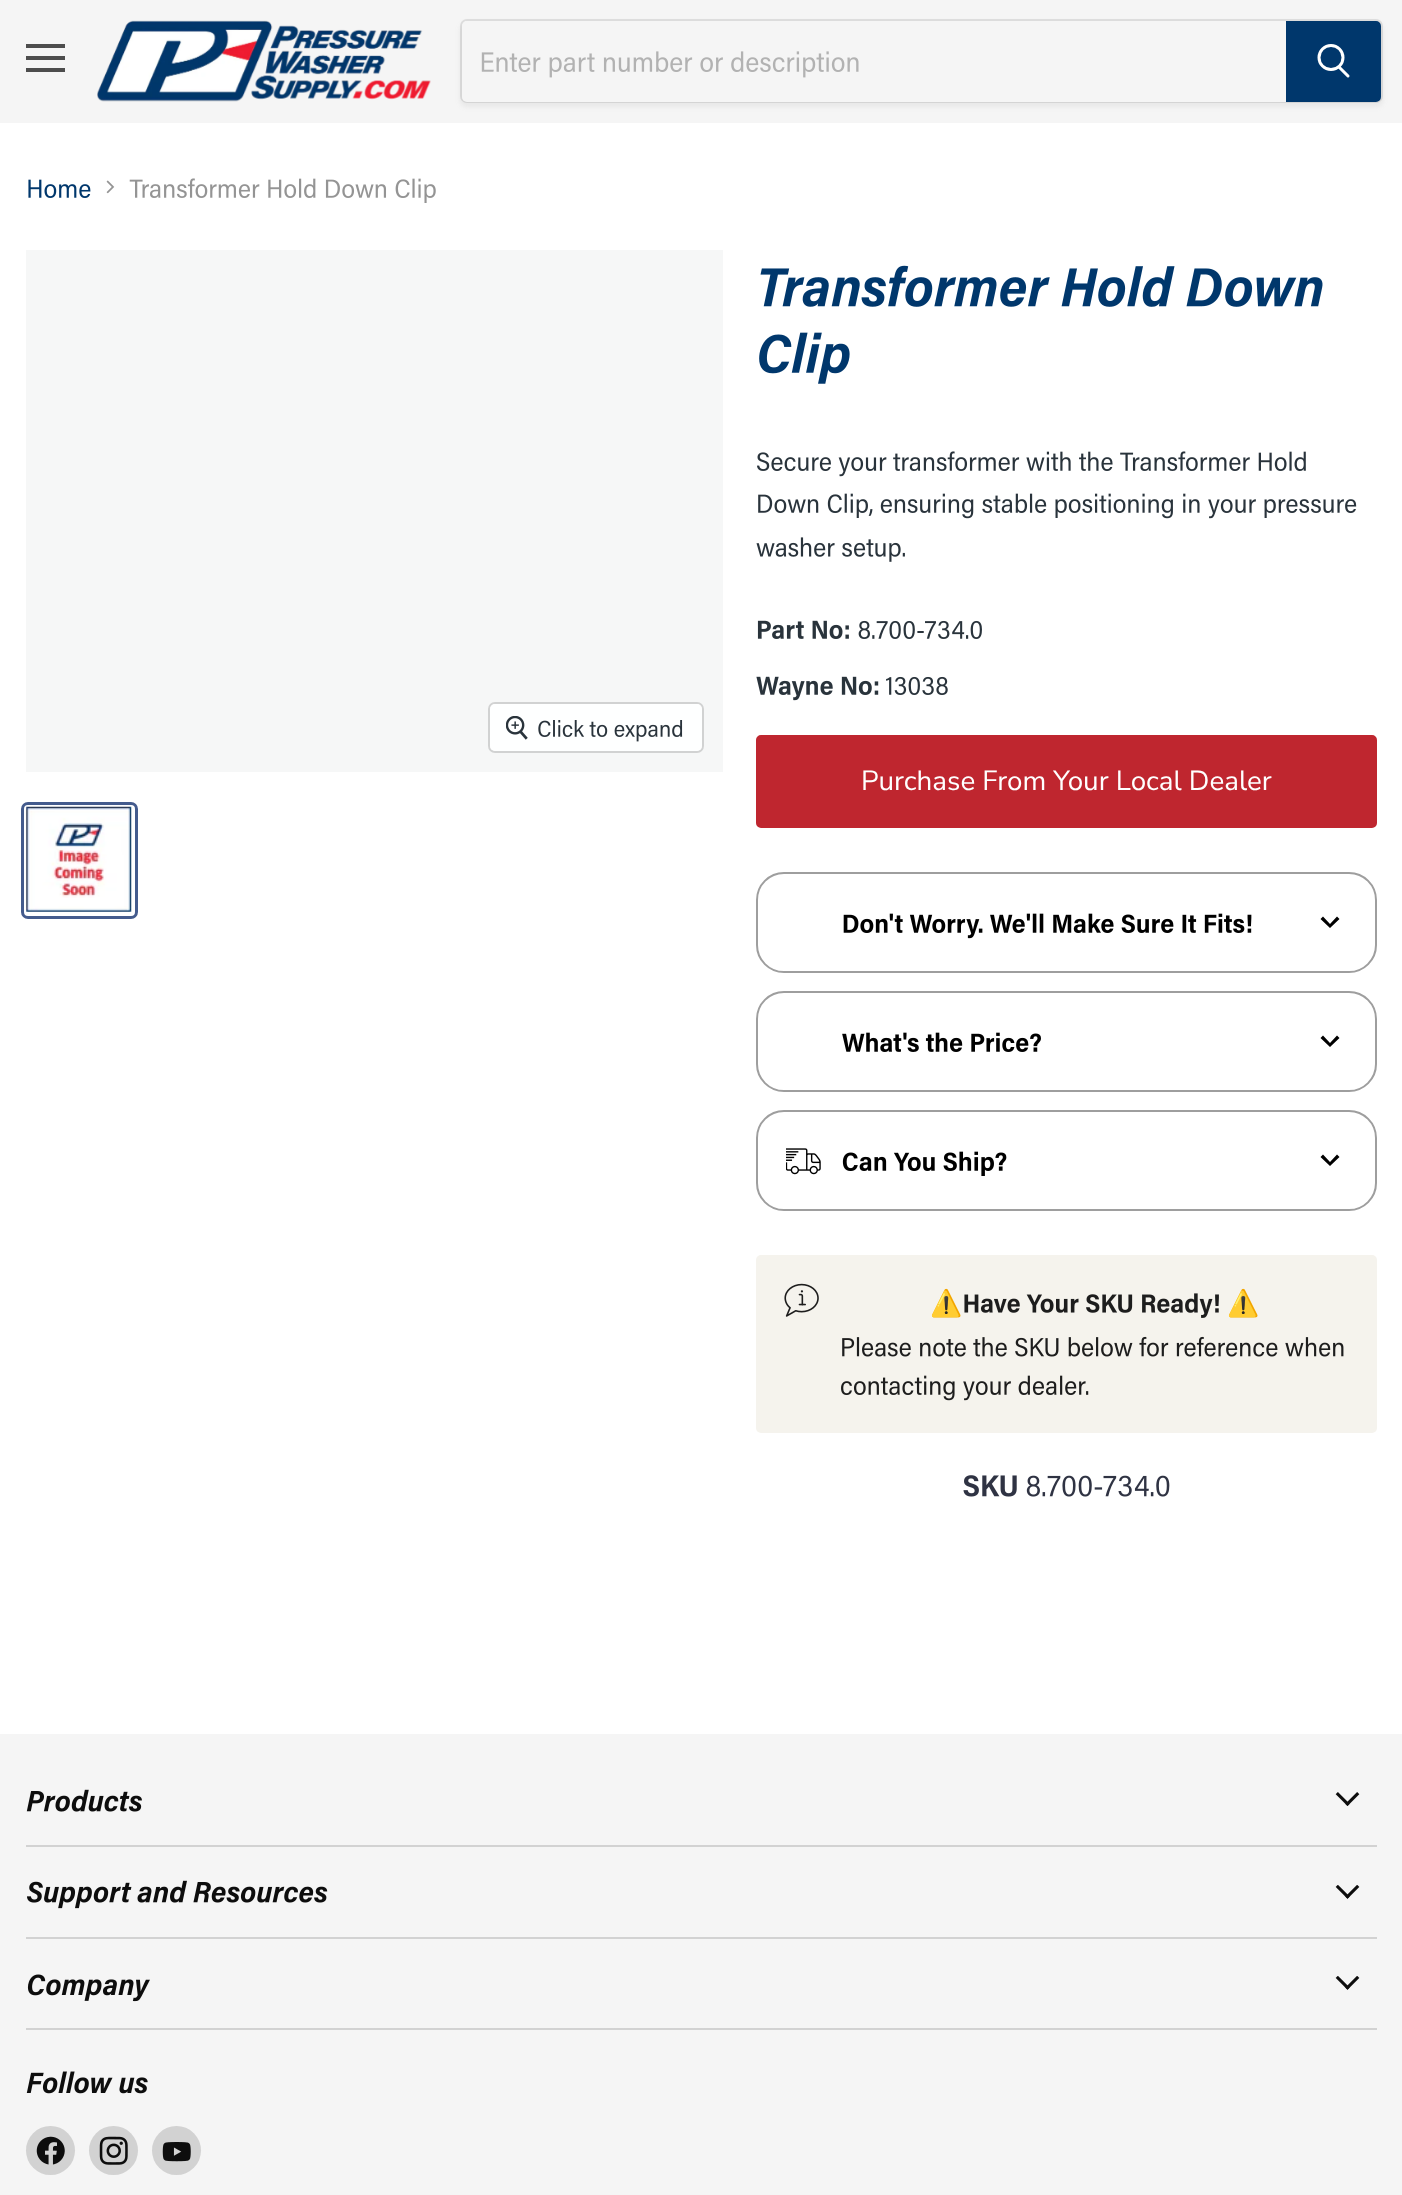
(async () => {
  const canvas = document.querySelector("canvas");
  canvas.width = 1402;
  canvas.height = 2195;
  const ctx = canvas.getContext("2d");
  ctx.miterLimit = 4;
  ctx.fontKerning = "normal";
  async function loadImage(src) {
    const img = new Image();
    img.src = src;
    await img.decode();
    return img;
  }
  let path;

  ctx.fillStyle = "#ffffff";
  ctx.fillRect(0, 0, 1402, 2195);
  for (const [x, y, w, h, color] of [
    [0, 0, 1402, 123, "#f5f5f5"],
    [26, 44, 39, 4, "#4d4d4d"],
    [26, 56, 39, 4, "#4d4d4d"],
    [26, 68, 39, 4, "#4d4d4d"],
  ]) {
    ctx.fillStyle = color;
    ctx.fillRect(x, y, w, h);
  }
  ctx.drawImage(await loadImage("img/1.png"), 97, 20, 334, 82);
  ctx.fillStyle = "rgba(128, 128, 128, 0.11)";
  ctx.filter = "blur(2.5px)";
  ctx.beginPath();
  ctx.roundRect(460, 23, 923, 84, 7);
  ctx.fill();
  ctx.filter = "none";
  ctx.beginPath();
  ctx.roundRect(461, 20, 921, 82, 6);
  ctx.strokeStyle = "rgba(128, 128, 128, 0.2)";
  ctx.lineWidth = 2;
  ctx.stroke();
  ctx.fillStyle = "#f5f5f5";
  ctx.beginPath();
  ctx.roundRect(462, 21, 824, 81, [5, 0, 0, 5]);
  ctx.fill();
  ctx.drawImage(await loadImage("img/2.png"), 481, 51, 378, 27);
  ctx.fillStyle = "#00376c";
  ctx.beginPath();
  ctx.roundRect(1287, 22, 93, 79, [0, 4, 4, 0]);
  ctx.fill();
  ctx.strokeStyle = "#00376c";
  ctx.stroke();
  path = new Path2D("M1348 76L1339.5 67.5");
  ctx.strokeStyle = "#ffffff";
  ctx.lineWidth = 3;
  ctx.lineCap = "round";
  ctx.stroke(path);
  ctx.beginPath();
  ctx.arc(1331, 57.5, 12, 0, Math.PI * 2);
  ctx.stroke();
  ctx.drawImage(await loadImage("img/3.png"), 28, 179, 63, 19);
  ctx.drawImage(await loadImage("img/4.png"), 106, 180, 9, 14);
  ctx.drawImage(await loadImage("img/5.png"), 129, 178, 307, 25);
  ctx.fillStyle = "#f6f7f7";
  ctx.fillRect(26, 250, 697, 522);
  ctx.beginPath();
  ctx.roundRect(489, 703, 214, 49, 6);
  ctx.strokeStyle = "#d1d2d2";
  ctx.lineWidth = 2;
  ctx.stroke();
  ctx.fillStyle = "rgba(255, 255, 255, 0.9)";
  ctx.beginPath();
  ctx.roundRect(490, 704, 212, 47, 5);
  ctx.fill();
  ctx.drawImage(await loadImage("img/6.png"), 506, 716, 22, 24);
  ctx.drawImage(await loadImage("img/7.png"), 538, 720, 145, 22);
  ctx.beginPath();
  ctx.roundRect(22.5, 803.5, 114, 114, 5.5);
  ctx.strokeStyle = "#445b8d";
  ctx.lineWidth = 3;
  ctx.stroke();
  ctx.drawImage(await loadImage("img/8.png"), 26, 806, 106, 106);
  ctx.drawImage(await loadImage("img/9.png"), 760, 265, 563, 42);
  ctx.drawImage(await loadImage("img/10.png"), 759, 332, 91, 52);
  ctx.drawImage(await loadImage("img/11.png"), 757, 451, 549, 26);
  ctx.drawImage(await loadImage("img/12.png"), 758, 493, 599, 26);
  ctx.drawImage(await loadImage("img/13.png"), 756, 537, 149, 25);
  ctx.drawImage(await loadImage("img/14.png"), 757, 620, 92, 19);
  ctx.drawImage(await loadImage("img/15.png"), 858, 620, 124, 19);
  ctx.drawImage(await loadImage("img/16.png"), 756, 676, 123, 25);
  ctx.drawImage(await loadImage("img/17.png"), 886, 676, 62, 19);
  ctx.fillStyle = "#bf262f";
  ctx.beginPath();
  ctx.roundRect(757, 736, 619, 91, 4);
  ctx.fill();
  ctx.strokeStyle = "#bf262f";
  ctx.lineWidth = 2;
  ctx.stroke();
  ctx.beginPath();
  ctx.roundRect(757, 873, 619, 99, 27);
  ctx.strokeStyle = "#9e9e9e";
  ctx.stroke();
  ctx.drawImage(await loadImage("img/18.png"), 843, 913, 409, 26);
  ctx.fillStyle = "#000000";
  path = new Path2D("M1330 924L1337 916.5L1339.5 919L1330 928L1320.5 919L1323 916.5Z");
  ctx.fill(path);
  ctx.beginPath();
  ctx.roundRect(757, 992, 619, 99, 27);
  ctx.stroke();
  ctx.drawImage(await loadImage("img/19.png"), 842, 1032, 199, 20);
  path = new Path2D("M1330 1043L1337 1035.5L1339.5 1038L1330 1047L1320.5 1038L1323 1035.5Z");
  ctx.fill(path);
  ctx.beginPath();
  ctx.roundRect(757, 1111, 619, 99, 27);
  ctx.stroke();
  ctx.drawImage(await loadImage("img/20.png"), 786, 1148, 35, 27);
  ctx.drawImage(await loadImage("img/21.png"), 842, 1151, 165, 25);
  path = new Path2D("M1330 1162L1337 1154.5L1339.5 1157L1330 1166L1320.5 1157L1323 1154.5Z");
  ctx.fill(path);
  ctx.fillStyle = "#f5f3ed";
  ctx.beginPath();
  ctx.roundRect(756, 1255, 621, 178, 5);
  ctx.fill();
  ctx.drawImage(await loadImage("img/22.png"), 784, 1283, 35, 34);
  ctx.drawImage(await loadImage("img/23.png"), 964, 1293, 255, 25);
  ctx.drawImage(await loadImage("img/24.png"), 842, 1336, 502, 21);
  ctx.drawImage(await loadImage("img/25.png"), 841, 1375, 248, 26);
  ctx.drawImage(await loadImage("img/26.png"), 963, 1475, 54, 22);
  ctx.drawImage(await loadImage("img/27.png"), 1026, 1475, 144, 22);
  ctx.fillStyle = "#f5f5f5";
  ctx.fillRect(0, 1734, 1402, 461);
  ctx.fillStyle = "#d2d2d2";
  ctx.fillRect(26, 1845, 1351, 2);
  ctx.drawImage(await loadImage("img/28.png"), 26, 1789, 116, 23);
  ctx.drawImage(await loadImage("img/29.png"), 1335, 1792, 25, 14);
  ctx.fillRect(26, 1937, 1351, 2);
  ctx.drawImage(await loadImage("img/30.png"), 27, 1880, 301, 29);
  ctx.drawImage(await loadImage("img/31.png"), 1335, 1885, 25, 14);
  ctx.fillRect(26, 2028, 1351, 2);
  ctx.drawImage(await loadImage("img/32.png"), 27, 1974, 123, 28);
  ctx.drawImage(await loadImage("img/31.png"), 1335, 1976, 25, 14);
  ctx.drawImage(await loadImage("img/33.png"), 26, 2071, 122, 23);
  ctx.beginPath();
  ctx.arc(50.5, 2150.5, 24.5, 0, Math.PI * 2);
  ctx.fill();
  ctx.drawImage(await loadImage("img/34.png"), 36, 2136, 29, 29);
  ctx.beginPath();
  ctx.arc(113.5, 2150.5, 24.5, 0, Math.PI * 2);
  ctx.fill();
  ctx.drawImage(await loadImage("img/35.png"), 99, 2136, 29, 29);
  ctx.beginPath();
  ctx.arc(176.5, 2150.5, 24.5, 0, Math.PI * 2);
  ctx.fill();
  ctx.drawImage(await loadImage("img/36.png"), 162, 2142, 29, 20);
  ctx.font = "27.75px Nunito Sans";
  ctx.fillStyle = "#ffffff";
  ctx.fillText("Purchase From Your Local Dealer", 861, 790);
  ctx.font = "bold 26px Noto Color Emoji";
  ctx.fillStyle = "#1d1d1d";
  ctx.fillText("⚠️", 930, 1312);
  ctx.fillText("⚠️", 1227, 1312);
})();
